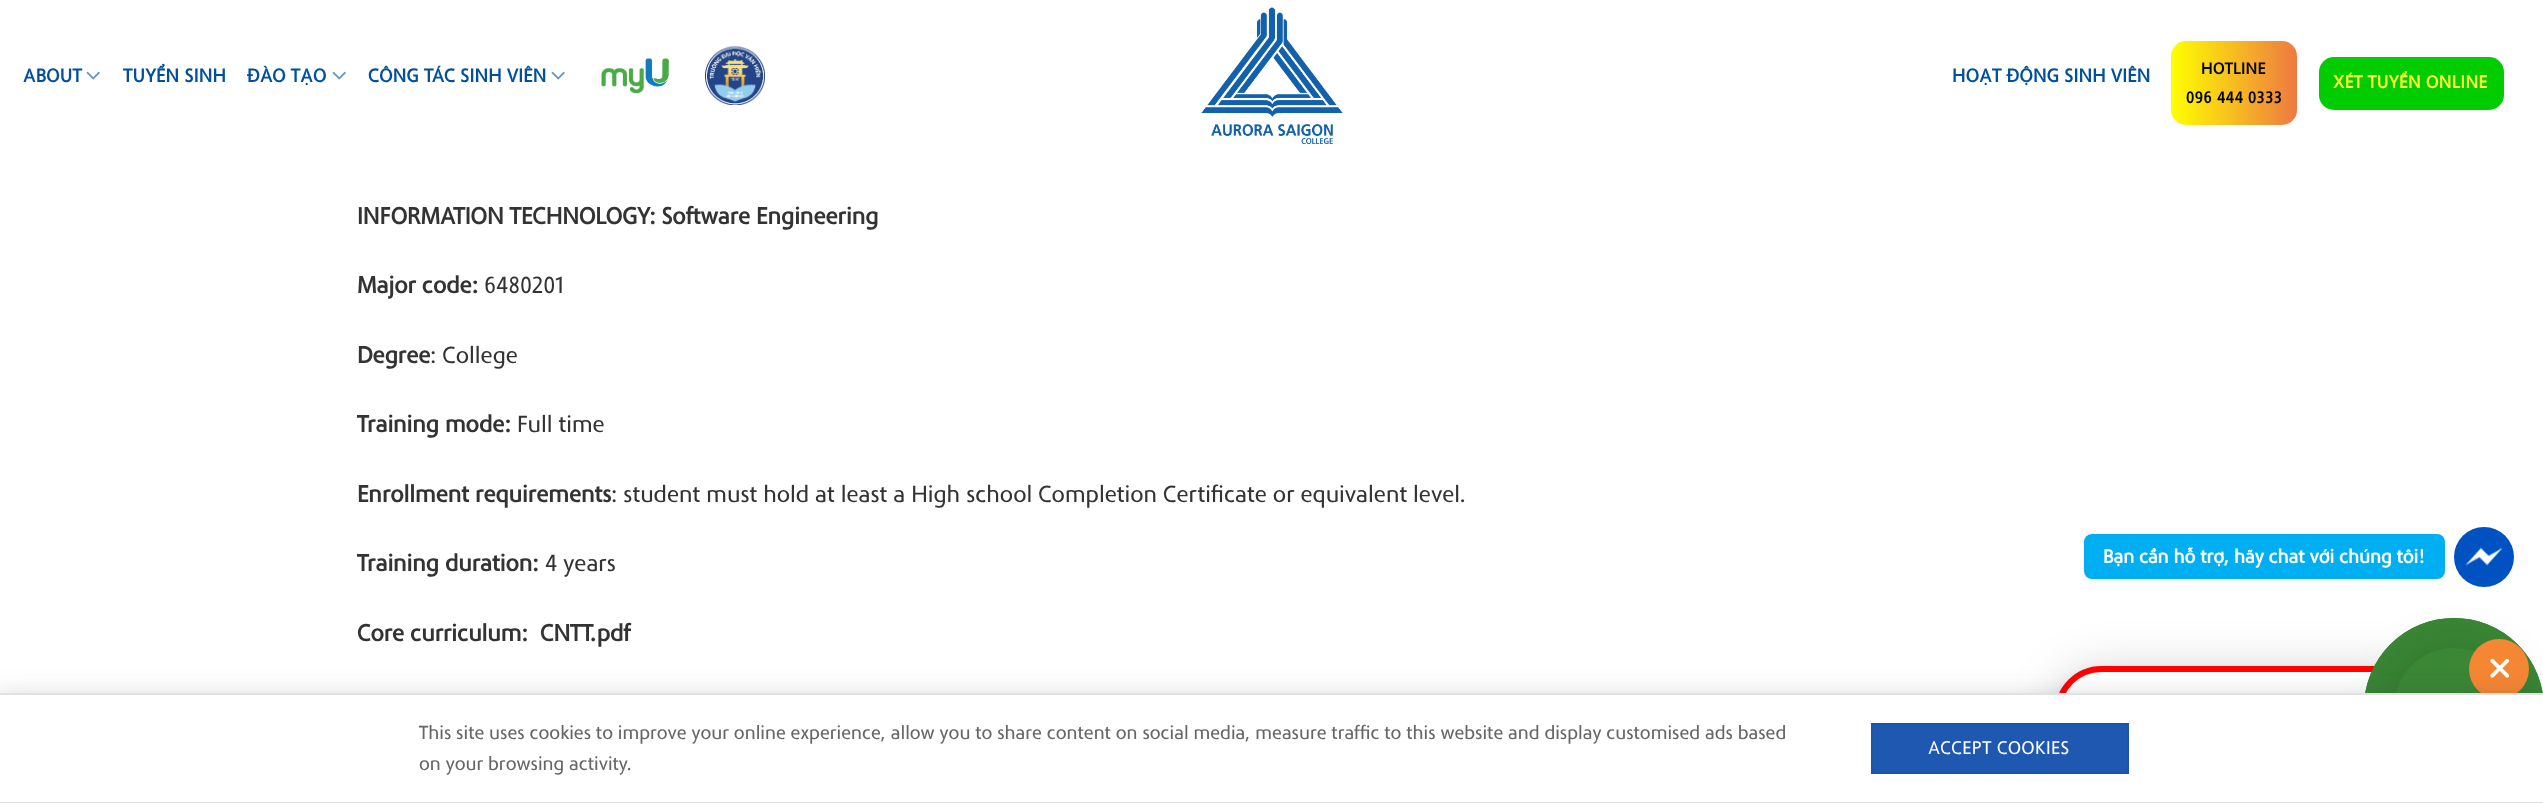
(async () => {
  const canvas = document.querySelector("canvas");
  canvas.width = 2543;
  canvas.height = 803;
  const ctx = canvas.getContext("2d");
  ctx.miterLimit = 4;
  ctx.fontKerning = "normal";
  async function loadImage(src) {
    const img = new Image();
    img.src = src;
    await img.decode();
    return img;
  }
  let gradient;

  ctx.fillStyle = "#ffffff";
  ctx.fillRect(0, 0, 2543, 803);
  ctx.drawImage(await loadImage("img/1.png"), 86, 71, 14, 9);
  ctx.drawImage(await loadImage("img/1.png"), 332, 71, 14, 9);
  ctx.drawImage(await loadImage("img/1.png"), 551, 71, 14, 9);
  ctx.drawImage(await loadImage("img/2.png"), 601, 58, 68, 35);
  ctx.drawImage(await loadImage("img/3.png"), 705, 46, 60, 59);
  ctx.drawImage(await loadImage("img/4.png"), 1201, 7, 142, 137);
  gradient = ctx.createLinearGradient(2171, 83, 2297, 83);
  gradient.addColorStop(0, "#ffff00");
  gradient.addColorStop(1, "#ee7942");
  ctx.fillStyle = gradient;
  ctx.beginPath();
  ctx.roundRect(2171, 41, 126, 84, 15);
  ctx.fill();
  ctx.fillStyle = "#00cc00";
  ctx.beginPath();
  ctx.roundRect(2319, 57, 185, 53, 15);
  ctx.fill();
  ctx.fillStyle = "rgba(0, 0, 0, 0.16)";
  ctx.filter = "blur(24px)";
  ctx.beginPath();
  ctx.roundRect(2055, 669, 377, 93, 46.5);
  ctx.fill();
  ctx.filter = "none";
  ctx.fillStyle = "rgba(0, 0, 0, 0.06)";
  ctx.filter = "blur(4.5px)";
  ctx.beginPath();
  ctx.roundRect(2055, 668, 377, 93, 46.5);
  ctx.fill();
  ctx.filter = "none";
  ctx.fillStyle = "#ffffff";
  ctx.beginPath();
  ctx.roundRect(2058, 669, 371, 87, [43.5, 0, 0, 43.5]);
  ctx.fill();
  ctx.strokeStyle = "#ff0000";
  ctx.lineWidth = 6;
  ctx.stroke();
  ctx.beginPath();
  ctx.arc(2454, 708, 89, 0, Math.PI * 2);
  ctx.strokeStyle = "#3a8735";
  ctx.lineWidth = 2;
  ctx.stroke();
  ctx.fillStyle = "#3a8735";
  ctx.beginPath();
  ctx.arc(2454, 708, 89, 0, Math.PI * 2);
  ctx.fill();
  ctx.stroke();
  ctx.fillStyle = "rgba(0, 0, 0, 0.16)";
  ctx.filter = "blur(24px)";
  ctx.beginPath();
  ctx.roundRect(2394, 651, 120, 120, 60);
  ctx.fill();
  ctx.filter = "none";
  ctx.fillStyle = "#00aff2";
  ctx.beginPath();
  ctx.roundRect(2084, 534, 361, 45, 8);
  ctx.fill();
  ctx.fillStyle = "#0052c2";
  ctx.beginPath();
  ctx.arc(2484, 557, 30, 0, Math.PI * 2);
  ctx.fill();
  ctx.drawImage(await loadImage("img/5.png"), 2465, 547, 38, 19);
  ctx.fillStyle = "#3a8735";
  ctx.beginPath();
  ctx.arc(2454, 708, 60, 0, Math.PI * 2);
  ctx.fill();
  ctx.fillStyle = "#f58634";
  ctx.beginPath();
  ctx.arc(2499, 669, 30, 0, Math.PI * 2);
  ctx.fill();
  ctx.drawImage(await loadImage("img/6.png"), 2490, 658, 20, 20);
  ctx.fillStyle = "rgba(36, 47, 66, 0.31)";
  ctx.filter = "blur(15px)";
  ctx.beginPath();
  ctx.rect(-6, 702, 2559, 93);
  ctx.fill();
  ctx.filter = "none";
  ctx.fillStyle = "#ffffff";
  ctx.beginPath();
  ctx.rect(-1, 694, 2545, 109);
  ctx.fill();
  ctx.strokeStyle = "#e1e1e1";
  ctx.stroke();
  ctx.fillStyle = "#1e58b1";
  ctx.beginPath();
  ctx.rect(1872, 724, 256, 49);
  ctx.fill();
  ctx.strokeStyle = "#1d54a8";
  ctx.stroke();
  ctx.letterSpacing = "0.4px";
  ctx.font = "bold 19.25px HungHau";
  ctx.fillStyle = "#00509d";
  for (const [text, x, y] of [
    ["ABOUT", 23, 82],
    ["TUYỂN SINH", 123, 82],
    ["ĐÀO TẠO", 247, 82],
    ["CÔNG TÁC SINH VIÊN", 368, 82],
    ["HOẠT ĐỘNG SINH VIÊN", 1952, 82],
  ]) {
    ctx.fillText(text, x, y);
  }
  ctx.letterSpacing = "0.5px";
  ctx.font = "bold 16.5px HungHau";
  ctx.fillStyle = "#000000";
  ctx.fillText("HOTLINE", 2201, 74);
  ctx.fillText("096 444 0333", 2186, 103);
  ctx.font = "bold 18px HungHau";
  ctx.fillStyle = "#ffff33";
  ctx.fillText("XÉT TUYỂN ONLINE", 2333, 88);
  ctx.letterSpacing = "0px";
  ctx.font = "bold 24px HungHau";
  ctx.fillStyle = "#333333";
  ctx.fillText("INFORMATION TECHNOLOGY: Software Engineering", 357, 224);
  ctx.fillText("Major code:", 357, 293);
  ctx.font = "24px HungHau";
  ctx.fillText("6480201", 484, 293);
  ctx.font = "bold 24px HungHau";
  ctx.fillText("Degree", 357, 363);
  ctx.font = "24px HungHau";
  ctx.fillText(": College", 430, 363);
  ctx.font = "bold 24px HungHau";
  ctx.fillText("Training mode:", 357, 432);
  ctx.font = "24px HungHau";
  ctx.fillText("Full time", 517, 432);
  ctx.font = "bold 24px HungHau";
  ctx.fillText("Enrollment requirements", 357, 502);
  ctx.font = "24px HungHau";
  ctx.fillText(": student must hold at least a High school Completion Certificate or equivalent level.", 611, 502);
  ctx.font = "bold 24px HungHau";
  ctx.fillText("Training duration:", 357, 571);
  ctx.font = "24px HungHau";
  ctx.fillText("4 years", 545, 571);
  ctx.font = "bold 24px HungHau";
  ctx.fillText("Core curriculum:", 357, 641);
  ctx.fillText("CNTT.pdf", 540, 641);
  ctx.font = "bold 19.5px HungHau";
  ctx.fillStyle = "#ffffff";
  ctx.fillText("Bạn cần hỗ trợ, hãy chat với chúng tôi!", 2103, 563);
  ctx.font = "19.5px HungHau";
  ctx.fillStyle = "#666666";
  ctx.fillText("This site uses cookies to improve your online experience, allow you to share content on social media, measure traffic to this website and display customised ads based", 419, 739);
  ctx.fillText("on your browsing activity.", 419, 770);
  ctx.letterSpacing = "0.5px";
  ctx.font = "19px HungHau";
  ctx.fillStyle = "#ffffff";
  ctx.fillText("ACCEPT COOKIES", 1928, 754);
})();
